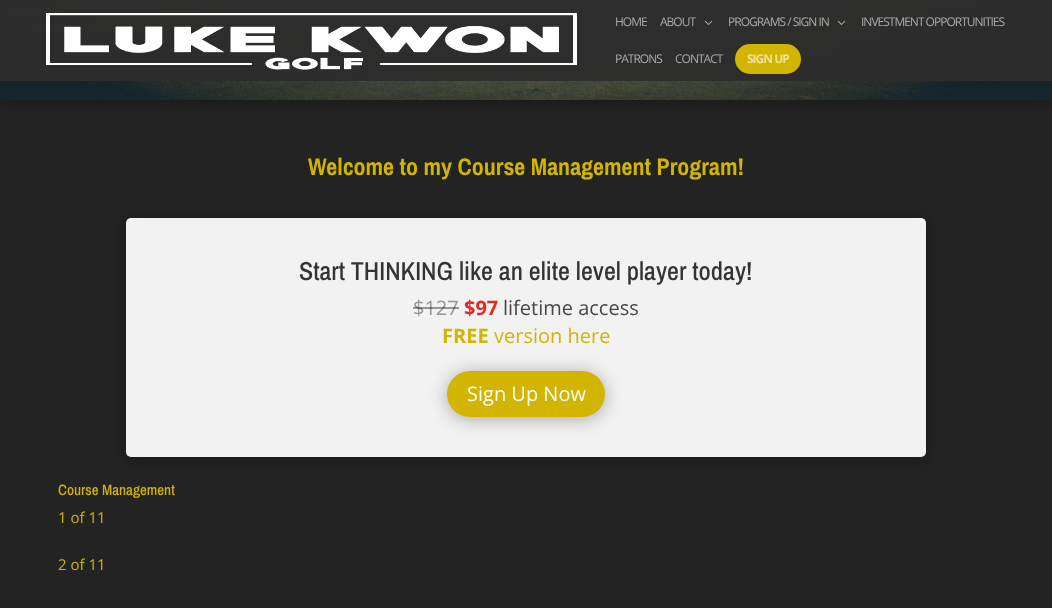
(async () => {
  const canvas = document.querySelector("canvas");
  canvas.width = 1052;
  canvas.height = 608;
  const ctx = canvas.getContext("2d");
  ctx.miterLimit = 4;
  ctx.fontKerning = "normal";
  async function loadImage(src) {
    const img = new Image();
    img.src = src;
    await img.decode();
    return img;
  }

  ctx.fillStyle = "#232323";
  ctx.fillRect(0, 0, 1052, 608);
  ctx.fillStyle = "rgba(0, 0, 0, 0.3)";
  ctx.filter = "blur(9px)";
  ctx.beginPath();
  ctx.rect(0, -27, 1052, 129);
  ctx.fill();
  ctx.filter = "none";
  ctx.drawImage(await loadImage("img/4.png"), 0, 0, 1052, 100);
  ctx.fillStyle = "rgba(45, 45, 45, 0.99)";
  ctx.fillRect(0, 0, 1052, 81);
  ctx.drawImage(await loadImage("img/1.png"), 46, 13, 531, 57);
  ctx.drawImage(await loadImage("img/2.png"), 704, 20, 9, 5);
  ctx.drawImage(await loadImage("img/3.png"), 837, 20, 9, 5);
  ctx.fillStyle = "#d1b500";
  ctx.beginPath();
  ctx.roundRect(735, 44, 66, 30, 15);
  ctx.fill();
  ctx.fillStyle = "rgba(0, 0, 0, 0.3)";
  ctx.filter = "blur(9px)";
  ctx.beginPath();
  ctx.roundRect(126, 220, 800, 239, 5);
  ctx.fill();
  ctx.filter = "none";
  ctx.fillStyle = "#f2f2f2";
  ctx.beginPath();
  ctx.roundRect(126, 218, 800, 239, 5);
  ctx.fill();
  ctx.fillStyle = "rgba(0, 0, 0, 0.3)";
  ctx.filter = "blur(9px)";
  ctx.beginPath();
  ctx.roundRect(447, 373, 158, 46, 23);
  ctx.fill();
  ctx.filter = "none";
  ctx.fillStyle = "#d1b500";
  ctx.beginPath();
  ctx.roundRect(447, 371, 158, 46, 23);
  ctx.fill();
  ctx.letterSpacing = "-1px";
  ctx.font = "12px Open Sans";
  ctx.fillStyle = "#ababab";
  for (const [text, x, y] of [
    ["HOME", 615, 26],
    ["ABOUT", 660, 26],
    ["PROGRAMS / SIGN IN", 728, 26],
    ["INVESTMENT OPPORTUNITIES", 861, 26],
    ["PATRONS", 615, 63],
    ["CONTACT", 675, 63],
  ]) {
    ctx.fillText(text, x, y);
  }
  ctx.font = "bold 12px Open Sans";
  ctx.fillStyle = "#ede199";
  ctx.fillText("SIGN UP", 747, 63);
  ctx.letterSpacing = "0px";
  ctx.font = "bold 24px Archivo Narrow";
  ctx.fillStyle = "#d1b500";
  ctx.fillText("Welcome to my Course Management Program!", 308, 175);
  ctx.font = "500 26px Archivo Narrow";
  ctx.fillStyle = "#333333";
  ctx.fillText("Start THINKING like an elite level player today!", 299, 280);
  ctx.font = "20px Open Sans";
  ctx.fillStyle = "#969696";
  ctx.fillText("$127", 413, 315);
  ctx.fillStyle = "rgba(0, 0, 0, 0.38)";
  ctx.fillRect(413, 307, 46, 2);
  ctx.font = "bold 20px Open Sans";
  ctx.fillStyle = "#e02b20";
  ctx.fillText("$97", 464, 315);
  ctx.font = "20px Open Sans";
  ctx.fillStyle = "#474747";
  ctx.fillText("lifetime access", 503, 315);
  ctx.font = "bold 20px Open Sans";
  ctx.fillStyle = "#d1b500";
  ctx.fillText("FREE", 442, 343);
  ctx.font = "20px Open Sans";
  ctx.fillText("version here", 494, 343);
  ctx.fillStyle = "#fcfcfc";
  ctx.fillText("Sign Up Now", 467, 401);
  ctx.font = "500 15px Archivo Narrow";
  ctx.fillStyle = "#d1b500";
  ctx.fillText("Course Management", 58, 495);
  ctx.font = "15px Open Sans";
  ctx.fillText("1 of 11", 58, 523);
  ctx.fillText("2 of 11", 58, 570);
})();
